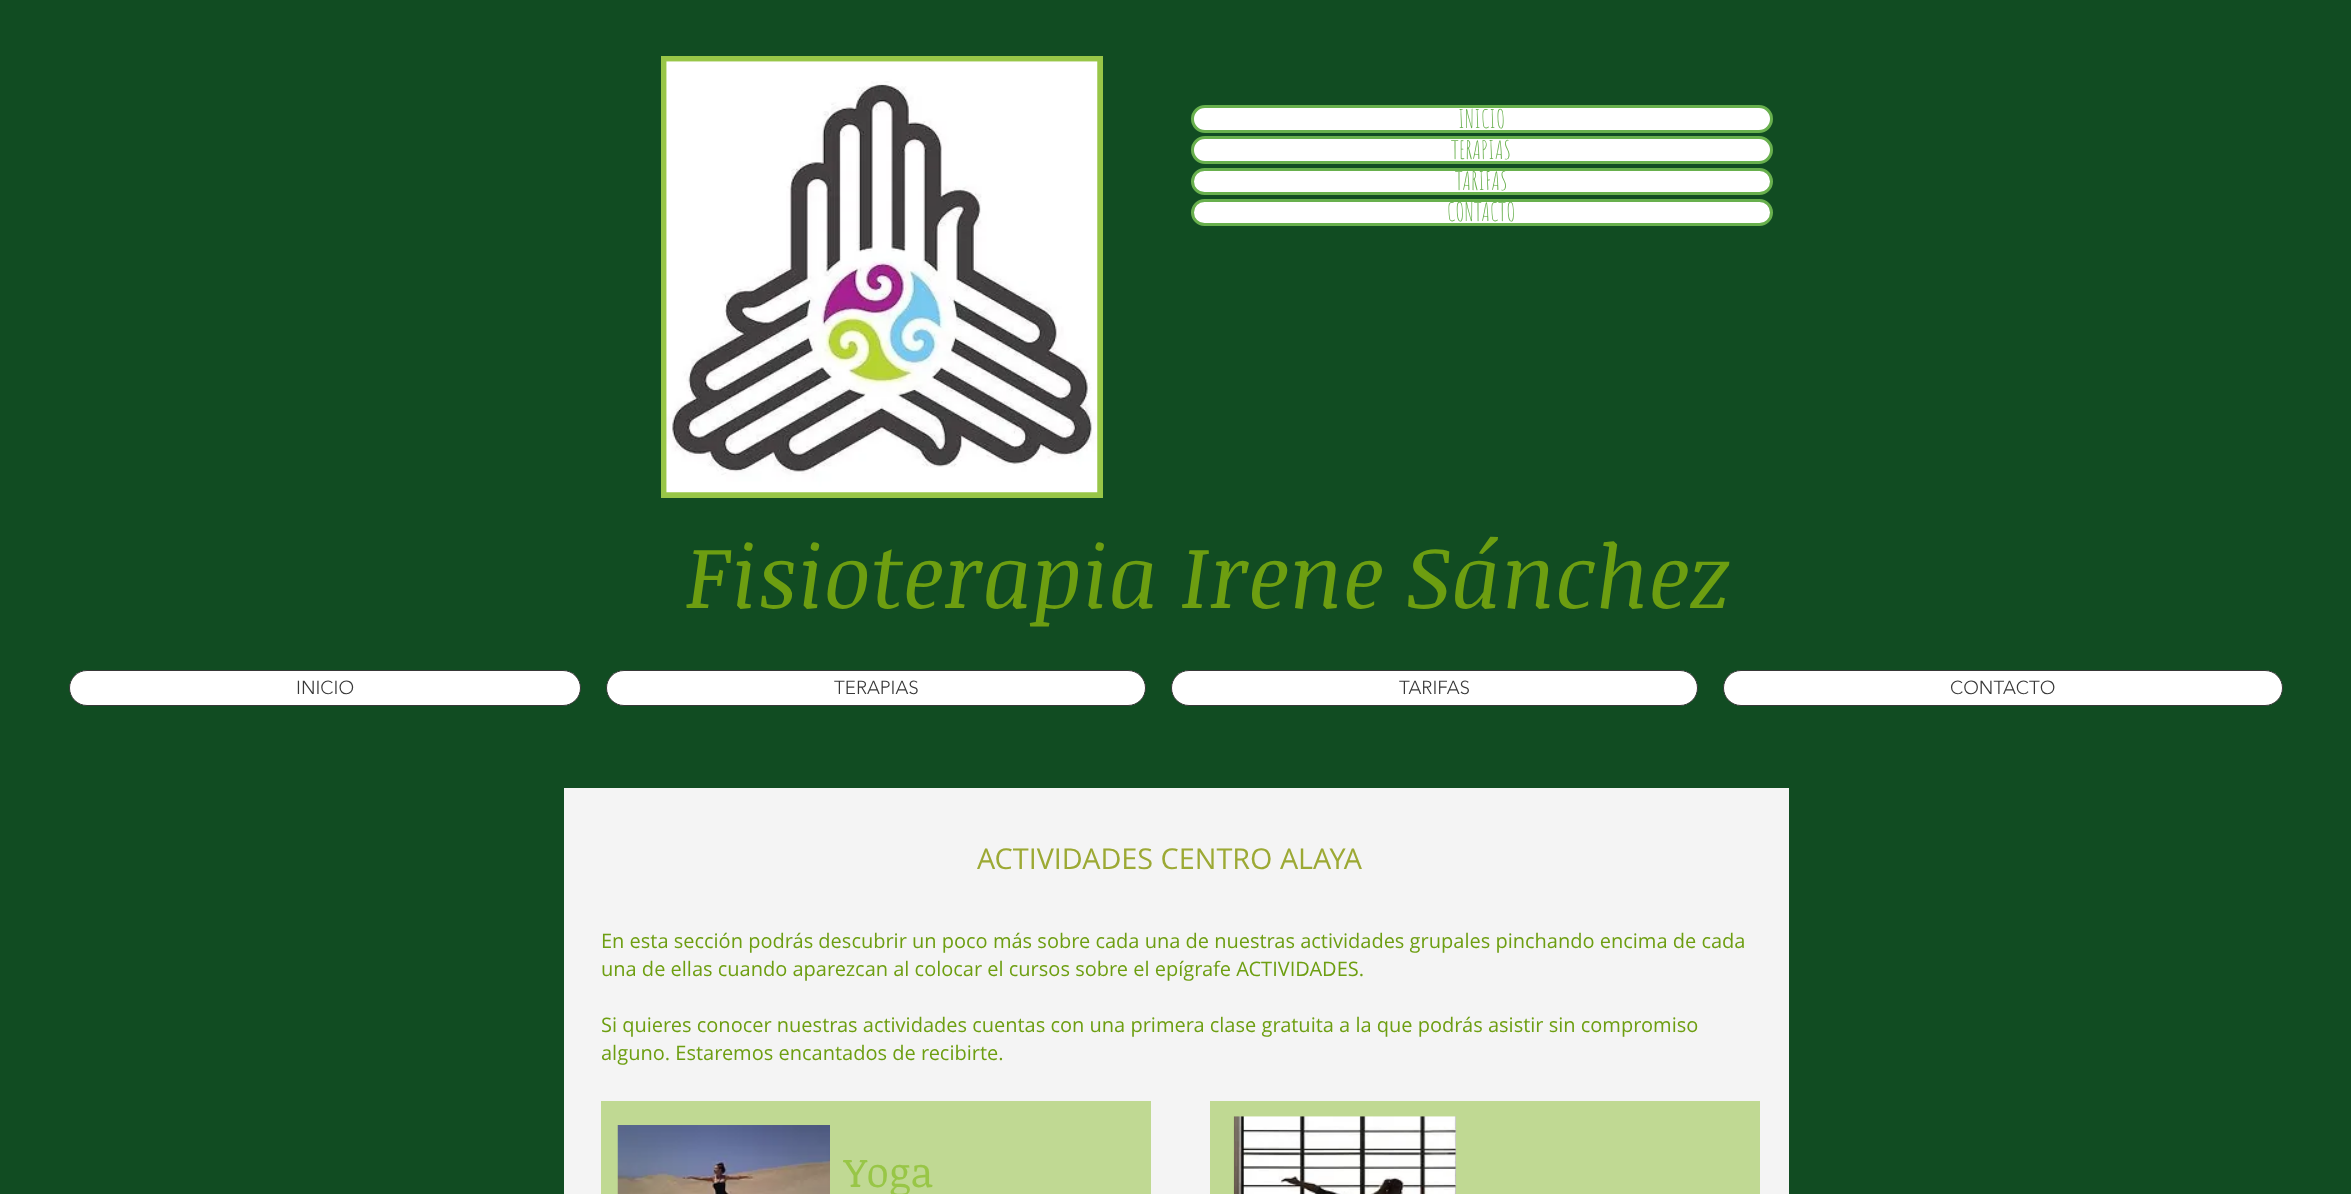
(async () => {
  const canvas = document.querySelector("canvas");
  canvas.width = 2351;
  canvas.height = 1194;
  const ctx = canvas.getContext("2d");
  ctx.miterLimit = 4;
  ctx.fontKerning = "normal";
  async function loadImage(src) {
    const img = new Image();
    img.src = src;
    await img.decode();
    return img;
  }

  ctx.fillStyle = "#114c22";
  ctx.fillRect(0, 0, 2351, 1194);
  ctx.fillStyle = "#98c647";
  ctx.fillRect(661, 56, 442, 442);
  ctx.drawImage(await loadImage("img/1.png"), 666, 61, 432, 432);
  ctx.fillStyle = "#ffffff";
  ctx.beginPath();
  ctx.roundRect(1192.5, 106.5, 579, 25, 12.5);
  ctx.fill();
  ctx.strokeStyle = "#68b04d";
  ctx.lineWidth = 3;
  ctx.stroke();
  ctx.beginPath();
  ctx.roundRect(1192.5, 137.5, 579, 25, 12.5);
  ctx.fill();
  ctx.stroke();
  ctx.beginPath();
  ctx.roundRect(1192.5, 169.5, 579, 24, 12);
  ctx.fill();
  ctx.stroke();
  ctx.beginPath();
  ctx.roundRect(1192.5, 200.5, 579, 24, 12);
  ctx.fill();
  ctx.stroke();
  ctx.beginPath();
  ctx.roundRect(69.5, 670.5, 511, 35, 17.5);
  ctx.fill();
  ctx.strokeStyle = "#383838";
  ctx.lineWidth = 1;
  ctx.stroke();
  ctx.beginPath();
  ctx.roundRect(606.5, 670.5, 539, 35, 17.5);
  ctx.fill();
  ctx.stroke();
  ctx.beginPath();
  ctx.roundRect(1171.5, 670.5, 526, 35, 17.5);
  ctx.fill();
  ctx.stroke();
  ctx.beginPath();
  ctx.roundRect(1723.5, 670.5, 559, 35, 17.5);
  ctx.fill();
  ctx.stroke();
  ctx.fillStyle = "#f4f4f4";
  ctx.fillRect(564, 788, 1225, 406);
  ctx.fillStyle = "#c0d993";
  ctx.fillRect(601, 1101, 550, 93);
  ctx.drawImage(await loadImage("img/2.png"), 617, 1125, 213, 69);
  ctx.fillRect(1210, 1101, 550, 93);
  ctx.drawImage(await loadImage("img/3.png"), 1233, 1116, 224, 78);
  ctx.font = "25px Amatic SC";
  ctx.fillStyle = "#68b04d";
  for (const [text, x, y] of [
    ["INICIO", 1458, 128],
    ["TERAPIAS", 1451, 159],
    ["TARIFAS", 1455, 190],
    ["CONTACTO", 1447, 221],
  ]) {
    ctx.fillText(text, x, y);
  }
  ctx.font = "italic 87.5px Noticia Text";
  ctx.fillStyle = "#6d9e11";
  ctx.fillText("Fisioterapia Irene Sánchez", 686, 608);
  ctx.font = "300 18.75px 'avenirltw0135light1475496'";
  ctx.fillStyle = "#383838";
  for (const [text, x, y] of [
    ["INICIO", 296, 694],
    ["TERAPIAS", 834, 694],
    ["TARIFAS", 1399, 694],
    ["CONTACTO", 1950, 694],
  ]) {
    ctx.fillText(text, x, y);
  }
  ctx.font = "28.75px Open Sans";
  ctx.fillStyle = "#9ca934";
  ctx.fillText("ACTIVIDADES CENTRO ALAYA", 977, 869);
  ctx.font = "20px Open Sans";
  ctx.fillStyle = "#6d9e11";
  for (const [text, x, y] of [
    ["En esta sección podrás descubrir un poco más sobre cada una de nuestras actividades grupales pinchando encima de cada", 601, 948],
    ["una de ellas cuando aparezcan al colocar el cursos sobre el epígrafe ACTIVIDADES.", 601, 976],
    ["Si quieres conocer nuestras actividades cuentas con una primera clase gratuita a la que podrás asistir sin compromiso", 601, 1032],
    ["alguno. Estaremos encantados de recibirte.", 601, 1060],
  ]) {
    ctx.fillText(text, x, y);
  }
  ctx.font = "41px Noticia Text";
  ctx.fillStyle = "#98c647";
  ctx.fillText("Yoga", 844, 1187);
})();
